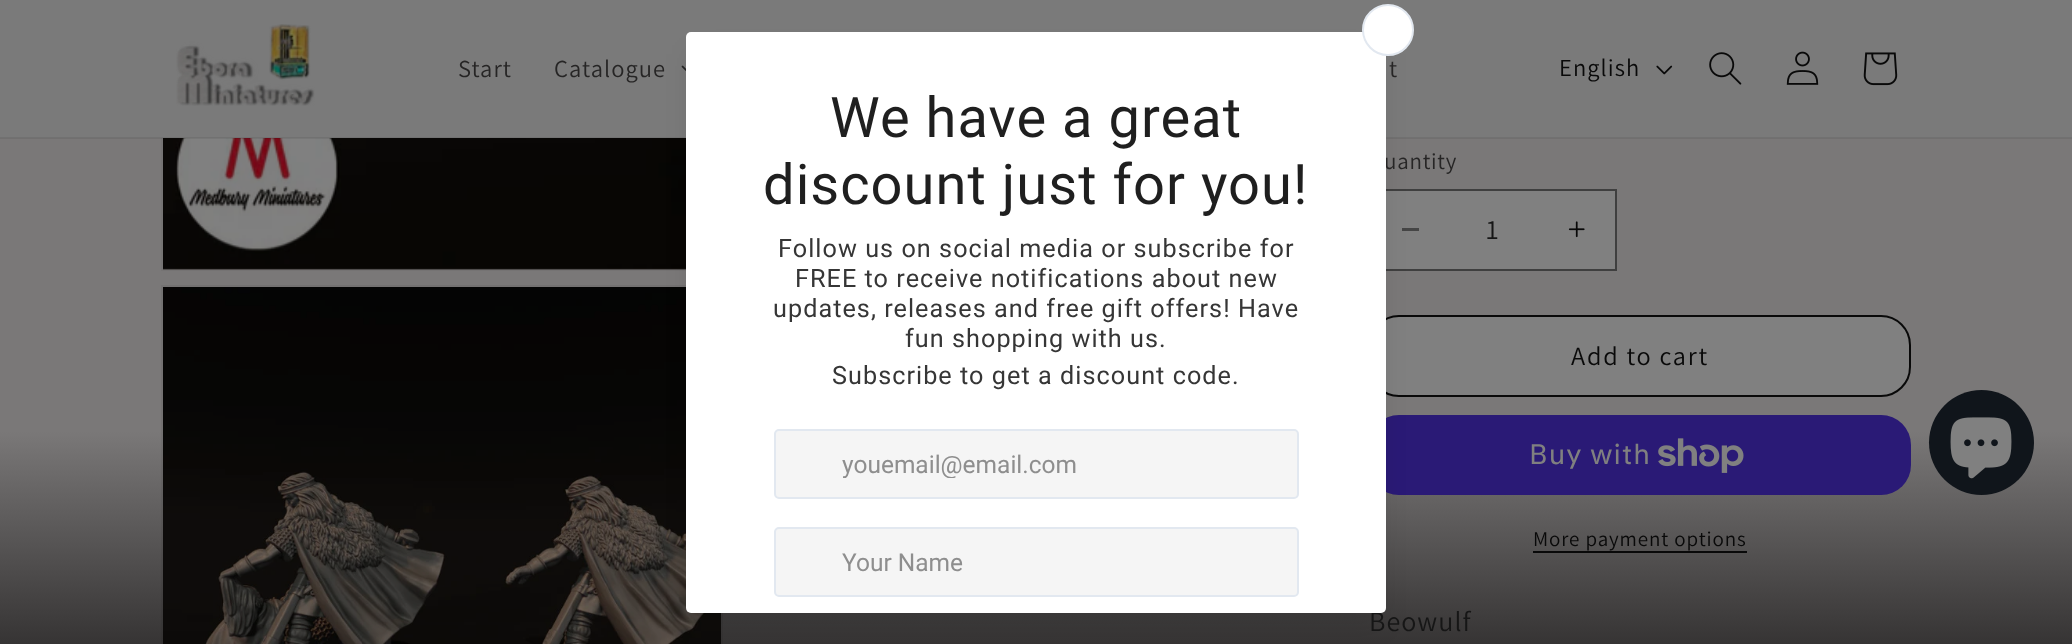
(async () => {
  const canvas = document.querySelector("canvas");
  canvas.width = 2072;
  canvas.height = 644;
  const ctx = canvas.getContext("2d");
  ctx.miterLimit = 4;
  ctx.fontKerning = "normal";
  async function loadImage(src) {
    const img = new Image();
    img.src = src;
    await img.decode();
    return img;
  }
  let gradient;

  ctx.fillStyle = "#ffffff";
  ctx.fillRect(0, 0, 2072, 644);
  gradient = ctx.createLinearGradient(1036, 0, 1036, 644);
  gradient.addColorStop(0.67, "#7a7878");
  gradient.addColorStop(1, "#363434");
  ctx.fillStyle = gradient;
  ctx.fillRect(0, 138, 2072, 506);
  ctx.strokeStyle = "#757373";
  ctx.lineWidth = 2;
  ctx.strokeRect(162, -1, 1136, 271);
  ctx.fillStyle = "#7a7a7a";
  ctx.fillRect(0, 0, 2072, 138);
  ctx.drawImage(await loadImage("img/7.png"), 163, 138, 523, 132);
  ctx.fillStyle = "rgba(9, 9, 9, 0.08)";
  ctx.fillRect(0, 137, 2072, 2);
  ctx.drawImage(await loadImage("img/1.png"), 176, 24, 139, 82);
  ctx.drawImage(await loadImage("img/2.png"), 681, 65, 5, 6);
  ctx.drawImage(await loadImage("img/3.png"), 1656, 65, 17, 10);
  ctx.drawImage(await loadImage("img/4.png"), 1709, 52, 33, 33);
  ctx.drawImage(await loadImage("img/5.png"), 1786, 51, 33, 34);
  ctx.drawImage(await loadImage("img/6.png"), 1863, 52, 35, 34);
  ctx.strokeStyle = "rgba(9, 9, 9, 0.05)";
  ctx.strokeRect(162, 286, 560, 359);
  ctx.drawImage(await loadImage("img/8.png"), 163, 287, 558, 357);
  ctx.fillStyle = "#808080";
  ctx.fillRect(1386, 191, 229, 78);
  ctx.fillStyle = "#454545";
  ctx.fillRect(1402, 228, 17, 3);
  ctx.drawImage(await loadImage("img/9.png"), 1568, 221, 17, 17);
  ctx.strokeStyle = "#3f3f3f";
  ctx.strokeRect(1370, 190, 246, 80);
  ctx.fillStyle = "#808080";
  ctx.beginPath();
  ctx.roundRect(1369, 315, 542, 82, 30);
  ctx.fill();
  ctx.beginPath();
  ctx.roundRect(1370, 316, 540, 80, 29);
  ctx.strokeStyle = "#090909";
  ctx.stroke();
  ctx.fillStyle = "#2a1a76";
  ctx.beginPath();
  ctx.roundRect(1369, 415, 542, 80, 30);
  ctx.fill();
  ctx.fillStyle = "rgba(0, 0, 0, 0.1)";
  ctx.filter = "blur(13px)";
  ctx.beginPath();
  ctx.rect(691, 54, 690, 571);
  ctx.fill();
  ctx.filter = "none";
  ctx.drawImage(await loadImage("img/10.png"), 1658, 438, 86, 35);
  ctx.fillStyle = "#090909";
  ctx.fillRect(1533, 551, 214, 2);
  ctx.fillStyle = "#10151b";
  ctx.beginPath();
  ctx.arc(1981.5, 442.5, 52.5, 0, Math.PI * 2);
  ctx.fill();
  ctx.drawImage(await loadImage("img/11.png"), 1950, 417, 62, 62);
  ctx.letterSpacing = "1.05px";
  ctx.font = "24.5px Assistant";
  ctx.fillStyle = "#262525";
  for (const [text, x, y] of [
    ["Start", 458, 77],
    ["Catalogue", 554, 77],
    ["t", 1389, 77],
  ]) {
    ctx.fillText(text, x, y);
  }
  ctx.fillStyle = "#090909";
  ctx.fillText("English", 1559, 76);
  ctx.letterSpacing = "0.75px";
  ctx.font = "23px Assistant";
  ctx.fillStyle = "#262525";
  ctx.fillText("uantity", 1384, 169);
  ctx.letterSpacing = "0px";
  ctx.font = "28px Assistant";
  ctx.fillStyle = "#161616";
  ctx.fillText("1", 1486, 239);
  ctx.letterSpacing = "1.75px";
  ctx.font = "26.25px Assistant";
  ctx.fillStyle = "#090909";
  ctx.fillText("Add to cart", 1571, 365);
  ctx.letterSpacing = "1.05px";
  ctx.font = "28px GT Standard";
  ctx.fillStyle = "#808080";
  ctx.fillText("Buy with", 1529, 464);
  ctx.letterSpacing = "0.9px";
  ctx.font = "21px Assistant";
  ctx.fillStyle = "#090909";
  ctx.fillText("More payment options", 1533, 546);
  ctx.letterSpacing = "1.05px";
  ctx.font = "28px Assistant";
  ctx.fillStyle = "#161616";
  ctx.fillText("Beowulf", 1369, 631);
  ctx.fillStyle = "#ffffff";
  ctx.beginPath();
  ctx.roundRect(686, 32, 700, 581, 5);
  ctx.fill();
  ctx.beginPath();
  ctx.arc(1388, 30, 25, 0, Math.PI * 2);
  ctx.fill();
  ctx.strokeStyle = "#e2e8f0";
  ctx.stroke();
  ctx.fillStyle = "#f5f5f5";
  ctx.beginPath();
  ctx.roundRect(775, 528, 523, 68, 4);
  ctx.fill();
  ctx.stroke();
  ctx.letterSpacing = "0px";
  ctx.font = "24.5px Roboto";
  ctx.fillStyle = "#8e8e8e";
  ctx.fillText("Your Name", 842, 571);
  ctx.fillStyle = "#f5f5f5";
  ctx.beginPath();
  ctx.roundRect(775, 430, 523, 68, 4);
  ctx.fill();
  ctx.stroke();
  ctx.save();
  ctx.beginPath();
  ctx.rect(779, 450, 514, 28);
  ctx.clip();
  ctx.fillStyle = "#8e8e8e";
  ctx.fillText("youemail@email.com", 842, 473);
  ctx.restore();
  ctx.letterSpacing = "1.05px";
  ctx.font = "25.2px Roboto";
  ctx.fillStyle = "#363636";
  for (const [text, x, y] of [
    ["Subscribe to get a discount code.", 832, 384],
    ["fun shopping with us.", 905, 347],
    ["updates, releases and free gift offers! Have", 773, 317],
    ["FREE to receive notifications about new", 795, 287],
    ["Follow us on social media or subscribe for", 778, 257],
  ]) {
    ctx.fillText(text, x, y);
  }
  ctx.font = "56px Roboto";
  ctx.fillStyle = "#1f1f1f";
  ctx.fillText("discount just for you!", 763, 204);
  ctx.fillText("We have a great", 830, 137);
})();
